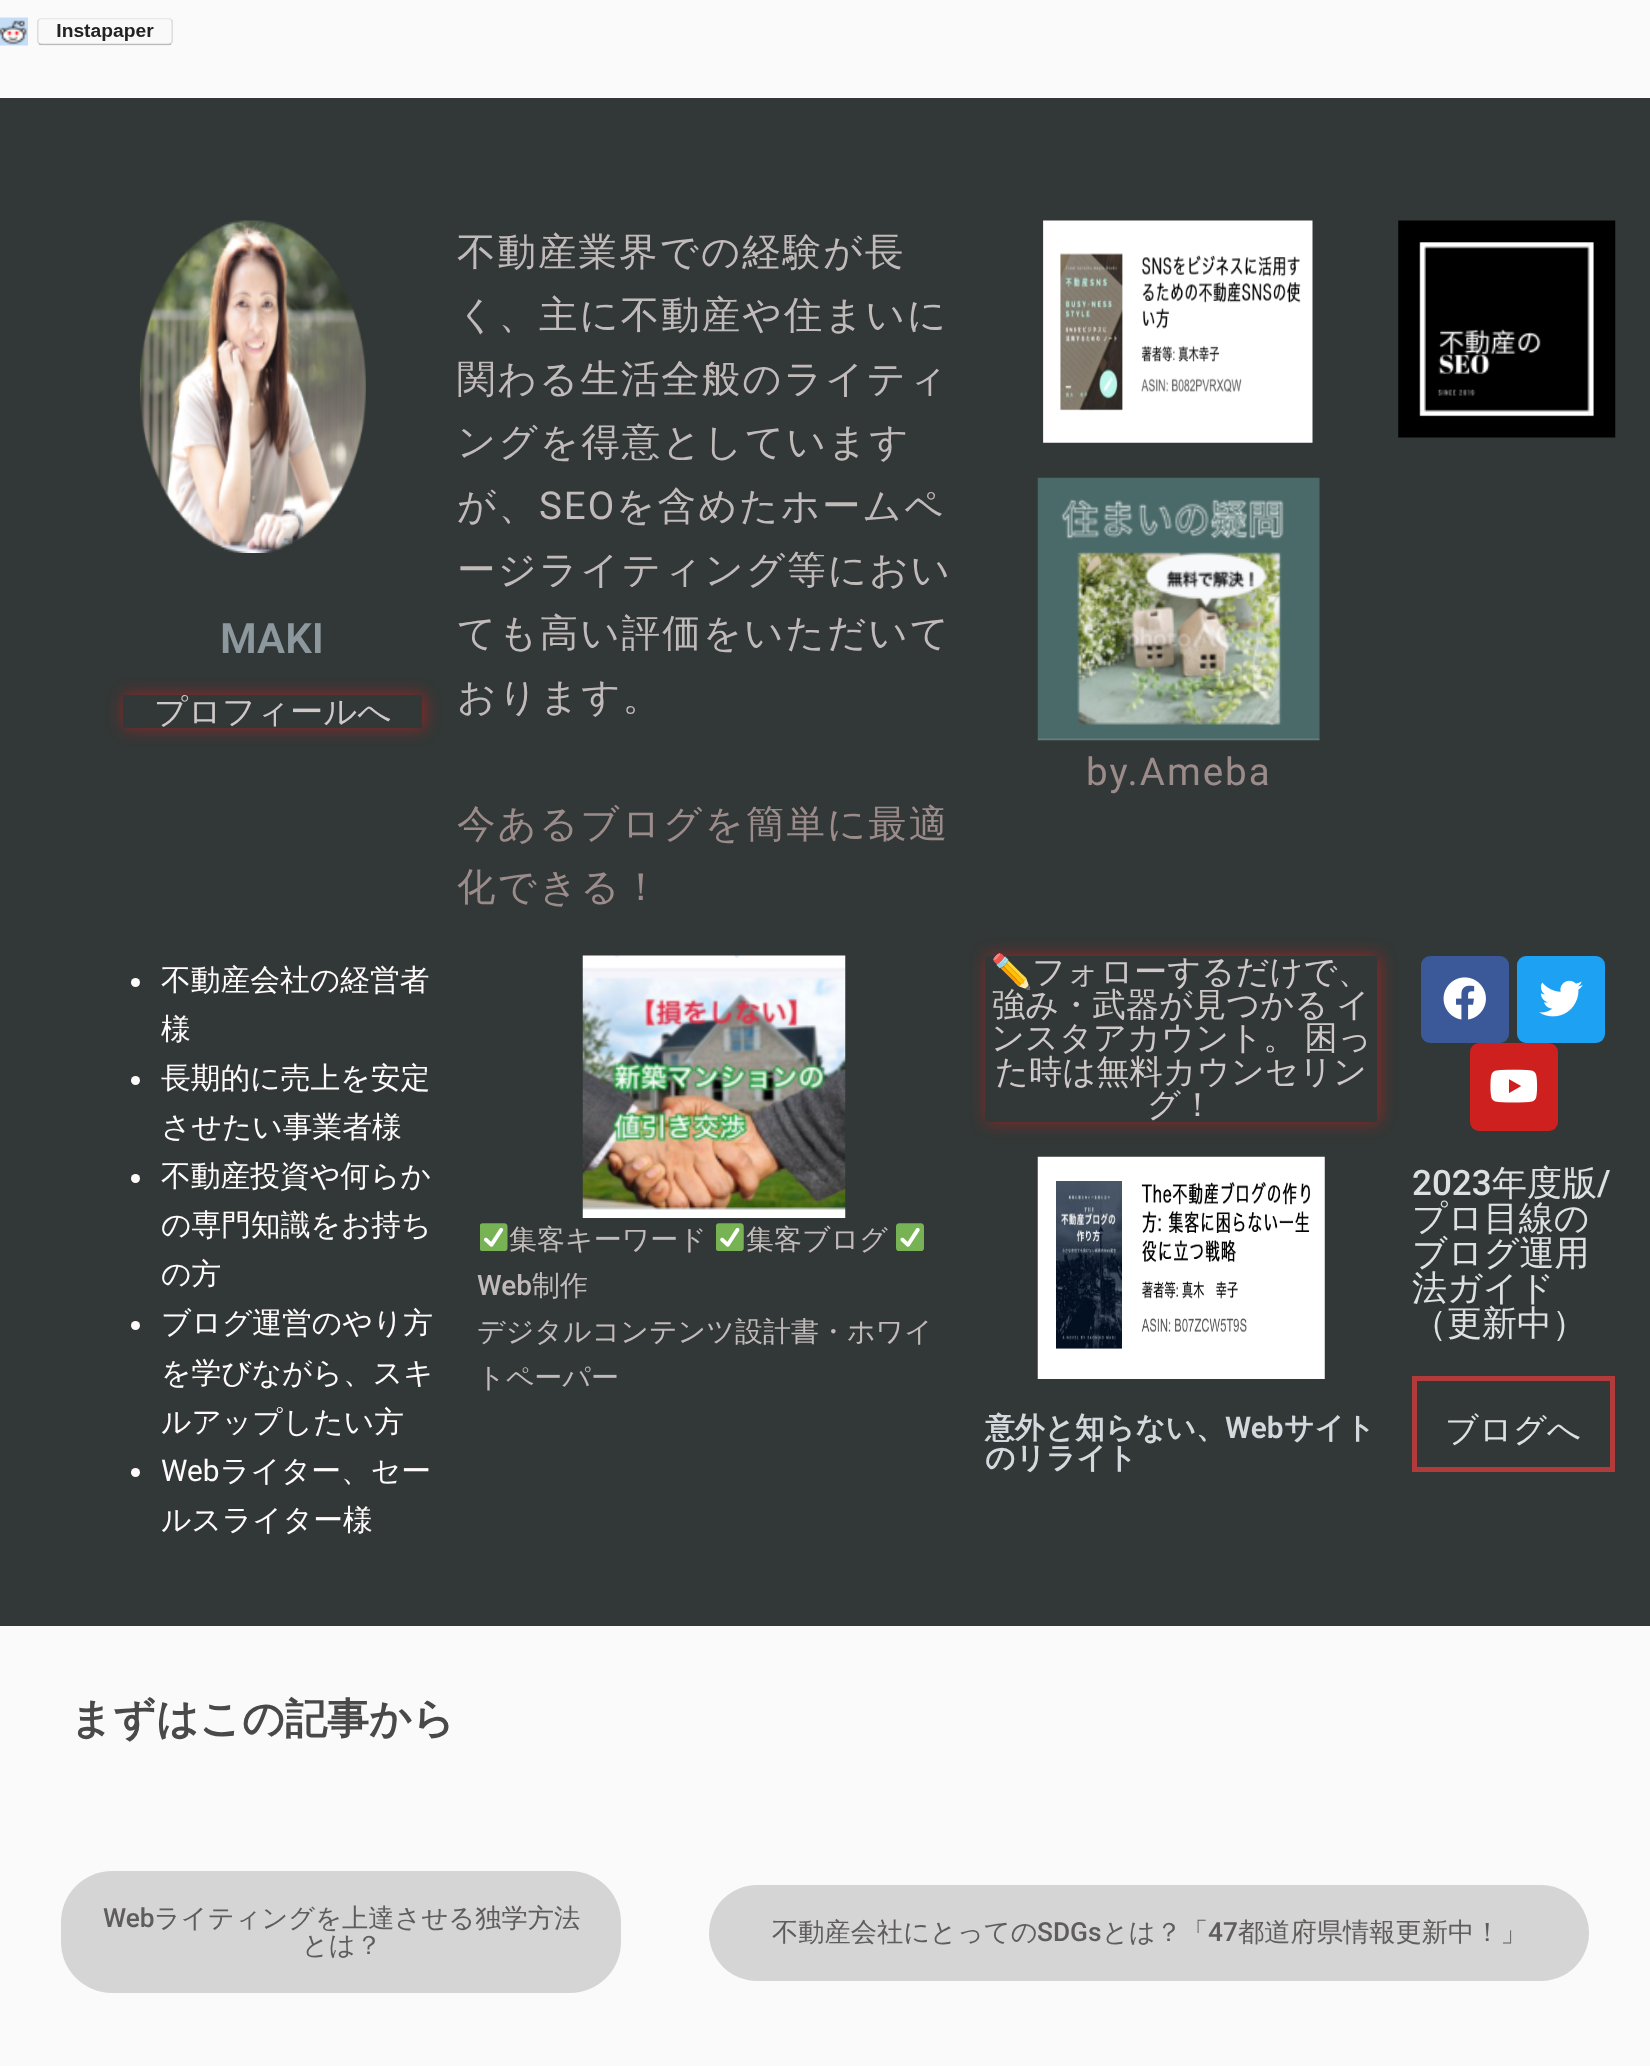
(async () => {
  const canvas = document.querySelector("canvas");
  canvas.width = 1650;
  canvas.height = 2066;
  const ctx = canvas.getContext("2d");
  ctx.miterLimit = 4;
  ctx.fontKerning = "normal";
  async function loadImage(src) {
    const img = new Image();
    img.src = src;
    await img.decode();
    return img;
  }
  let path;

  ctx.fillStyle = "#fafafa";
  ctx.fillRect(0, 0, 1650, 2066);
  ctx.drawImage(await loadImage("img/1.png"), 0, 17, 28, 29);
  ctx.drawImage(await loadImage("img/2.png"), 37, 18, 136, 28);
  ctx.fillStyle = "#323837";
  ctx.fillRect(0, 98, 1650, 1528);
  ctx.drawImage(await loadImage("img/3.png"), 140, 220, 226, 333);
  ctx.save();
  path = new Path2D("M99 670H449V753H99ZM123 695H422V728H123Z");
  ctx.clip(path, "evenodd");
  ctx.fillStyle = "rgba(238, 21, 21, 0.52)";
  ctx.filter = "blur(8px)";
  ctx.beginPath();
  ctx.rect(124, 695, 300, 33);
  ctx.fill();
  ctx.filter = "none";
  ctx.restore();
  ctx.drawImage(await loadImage("img/4.png"), 1398, 220, 218, 218);
  ctx.drawImage(await loadImage("img/5.png"), 1043, 220, 270, 223);
  ctx.drawImage(await loadImage("img/6.png"), 1037, 477, 283, 264);
  ctx.fillStyle = "#fffbfb";
  ctx.beginPath();
  ctx.arc(135.5, 982.5, 4.5, 0, Math.PI * 2);
  ctx.fill();
  ctx.beginPath();
  ctx.arc(135.5, 1080.5, 4.5, 0, Math.PI * 2);
  ctx.fill();
  ctx.beginPath();
  ctx.arc(135.5, 1178.5, 4.5, 0, Math.PI * 2);
  ctx.fill();
  ctx.beginPath();
  ctx.arc(135.5, 1325.5, 4.5, 0, Math.PI * 2);
  ctx.fill();
  ctx.beginPath();
  ctx.arc(135.5, 1472.5, 4.5, 0, Math.PI * 2);
  ctx.fill();
  ctx.drawImage(await loadImage("img/7.png"), 582, 955, 264, 263);
  ctx.drawImage(await loadImage("img/8.png"), 480, 1223, 28, 28);
  ctx.drawImage(await loadImage("img/9.png"), 716, 1223, 28, 28);
  ctx.drawImage(await loadImage("img/10.png"), 896, 1223, 28, 28);
  ctx.save();
  path = new Path2D("M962 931H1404V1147H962ZM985 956H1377V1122H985Z");
  ctx.clip(path, "evenodd");
  ctx.fillStyle = "rgba(238, 21, 21, 0.52)";
  ctx.filter = "blur(8px)";
  ctx.beginPath();
  ctx.rect(987, 956, 392, 166);
  ctx.fill();
  ctx.filter = "none";
  ctx.restore();
  ctx.drawImage(await loadImage("img/11.png"), 1037, 1156, 288, 223);
  ctx.fillStyle = "#3b5998";
  ctx.beginPath();
  ctx.roundRect(1421, 956, 88, 87, 9);
  ctx.fill();
  ctx.drawImage(await loadImage("img/12.png"), 1443, 977, 43, 43);
  ctx.fillStyle = "#1da1f2";
  ctx.beginPath();
  ctx.roundRect(1517, 956, 88, 87, 9);
  ctx.fill();
  ctx.drawImage(await loadImage("img/13.png"), 1539, 980, 44, 37);
  ctx.fillStyle = "#cd201f";
  ctx.beginPath();
  ctx.roundRect(1470, 1043, 88, 88, 9);
  ctx.fill();
  ctx.drawImage(await loadImage("img/14.png"), 1490, 1069, 48, 34);
  ctx.strokeStyle = "#b13b3b";
  ctx.lineWidth = 5;
  ctx.strokeRect(1414.5, 1378.5, 198, 91);
  ctx.fillStyle = "#d5d5d5";
  ctx.beginPath();
  ctx.roundRect(61, 1871, 560, 122, 51);
  ctx.fill();
  ctx.beginPath();
  ctx.roundRect(709, 1885, 880, 96, 48);
  ctx.fill();
  ctx.font = "600 42px Roboto";
  ctx.fillStyle = "#8c989e";
  ctx.fillText("MAKI", 220, 653);
  ctx.font = "500 33.25px WenQuanYi Zen Hei";
  ctx.fillStyle = "#cec8c8";
  ctx.fillText("プロフィールへ", 154, 723);
  ctx.letterSpacing = "2px";
  ctx.font = "500 38.5px WenQuanYi Zen Hei";
  ctx.fillStyle = "#c1baba";
  for (const [text, x, y] of [
    ["不動産業界での経験が長", 457, 265],
    ["く、主に不動産や住まいに", 457, 328],
    ["関わる生活全般のライティ", 457, 392],
    ["ングを得意としています", 457, 455],
    ["が、", 457, 519],
  ]) {
    ctx.fillText(text, x, y);
  }
  ctx.font = "38.5px Roboto";
  ctx.fillText("SEO", 539, 519);
  ctx.font = "500 38.5px WenQuanYi Zen Hei";
  for (const [text, x, y] of [
    ["を含めたホームペ", 616, 519],
    ["ージライティング等におい", 457, 583],
    ["ても高い評価をいただいて", 457, 646],
    ["おります。", 457, 710],
  ]) {
    ctx.fillText(text, x, y);
  }
  ctx.fillStyle = "#9c8b8b";
  ctx.fillText("今あるブログを簡単に最適", 457, 837);
  ctx.fillText("化できる！", 457, 900);
  ctx.font = "38.5px Roboto";
  ctx.fillText("by.Ameba", 1086, 785);
  ctx.letterSpacing = "0px";
  ctx.font = "500 29.75px WenQuanYi Zen Hei";
  ctx.fillStyle = "#fffbfb";
  for (const [text, x, y] of [
    ["不動産会社の経営者", 161, 990],
    ["様", 161, 1039],
    ["長期的に売上を安定", 161, 1088],
    ["させたい事業者様", 161, 1137],
    ["不動産投資や何らか", 161, 1186],
    ["の専門知識をお持ち", 161, 1235],
    ["の方", 161, 1284],
    ["ブログ運営のやり方", 161, 1333],
    ["を学びながら、スキ", 161, 1383],
    ["ルアップしたい方", 161, 1432],
  ]) {
    ctx.fillText(text, x, y);
  }
  ctx.font = "29.75px Roboto";
  ctx.fillText("Web", 161, 1481);
  ctx.font = "500 29.75px WenQuanYi Zen Hei";
  ctx.fillText("ライター、セー", 220, 1481);
  ctx.fillText("ルスライター様", 161, 1530);
  ctx.font = "500 28px WenQuanYi Zen Hei";
  ctx.fillStyle = "#c1baba";
  ctx.fillText("集客キーワード", 509, 1249);
  ctx.fillText("集客ブログ", 746, 1249);
  ctx.font = "500 28px Roboto";
  ctx.fillText("Web", 477, 1295);
  ctx.font = "500 28px WenQuanYi Zen Hei";
  for (const [text, x, y] of [
    ["制作", 532, 1295],
    ["デジタルコンテンツ設計書・ホワイ", 477, 1341],
    ["トペーパー", 477, 1387],
  ]) {
    ctx.fillText(text, x, y);
  }
  ctx.font = "33.25px Noto Color Emoji";
  ctx.fillStyle = "#cec8c8";
  ctx.fillText("✏️", 991, 983);
  ctx.font = "500 33.25px WenQuanYi Zen Hei";
  ctx.fillText("フォローするだけで、", 1032, 983);
  ctx.wordSpacing = "-2px";
  ctx.fillText("強み・武器が見つかる イ", 992, 1016);
  ctx.fillText("ンスタアカウント。 困っ", 991, 1049);
  ctx.wordSpacing = "0px";
  ctx.fillText("た時は無料カウンセリン", 995, 1083);
  ctx.fillText("グ！", 1147, 1116);
  ctx.font = "bold 29.75px WenQuanYi Zen Hei";
  ctx.fillStyle = "#d3d9dd";
  ctx.fillText("意外と知らない、", 985, 1438);
  ctx.font = "600 29.75px Roboto";
  ctx.fillText("Web", 1225, 1438);
  ctx.font = "bold 29.75px WenQuanYi Zen Hei";
  ctx.fillText("サイト", 1284, 1438);
  ctx.fillText("のリライト", 985, 1468);
  ctx.font = "500 35px Roboto";
  ctx.fillStyle = "#dee1e3";
  ctx.fillText("2023", 1412, 1195);
  ctx.font = "500 35px WenQuanYi Zen Hei";
  ctx.fillText("年度版", 1492, 1195);
  ctx.font = "500 35px Roboto";
  ctx.fillText("/", 1597, 1195);
  ctx.font = "500 35px WenQuanYi Zen Hei";
  for (const [text, x, y] of [
    ["プロ目線の", 1412, 1230],
    ["ブログ運用", 1412, 1265],
    ["法ガイド", 1412, 1300],
    ["（更新中）", 1412, 1335],
  ]) {
    ctx.fillText(text, x, y);
  }
  ctx.font = "500 33.25px WenQuanYi Zen Hei";
  ctx.fillText("ブログへ", 1445, 1441);
  ctx.font = "bold 42px WenQuanYi Zen Hei";
  ctx.fillStyle = "#4a4949";
  ctx.fillText("まずはこの記事から", 70, 1733);
  ctx.font = "500 26.25px Roboto";
  ctx.fillStyle = "#5f5c5c";
  ctx.fillText("Web", 103, 1927);
  ctx.font = "500 26.25px WenQuanYi Zen Hei";
  for (const [text, x, y] of [
    ["ライティングを上達させる独学方法", 154, 1927],
    ["とは？", 302, 1954],
    ["不動産会社にとっての", 772, 1941],
  ]) {
    ctx.fillText(text, x, y);
  }
  ctx.font = "500 26.25px Roboto";
  ctx.fillText("SDGs", 1037, 1941);
  ctx.font = "500 26.25px WenQuanYi Zen Hei";
  ctx.fillText("とは？「", 1102, 1941);
  ctx.font = "500 26.25px Roboto";
  ctx.fillText("47", 1208, 1941);
  ctx.font = "500 26.25px WenQuanYi Zen Hei";
  ctx.fillText("都道府県情報更新中！」", 1238, 1941);
})();
